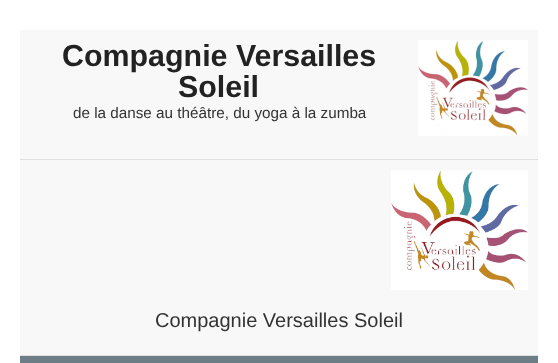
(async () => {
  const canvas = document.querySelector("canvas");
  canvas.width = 558;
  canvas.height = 363;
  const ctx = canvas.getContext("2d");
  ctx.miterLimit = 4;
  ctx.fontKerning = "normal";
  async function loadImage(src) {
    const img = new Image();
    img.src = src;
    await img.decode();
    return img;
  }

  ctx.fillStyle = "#ffffff";
  ctx.fillRect(0, 0, 558, 363);
  ctx.fillStyle = "#f8f8f8";
  ctx.fillRect(20, 30, 518, 129);
  ctx.fillStyle = "#e0e0e0";
  ctx.fillRect(20, 159, 518, 1);
  ctx.drawImage(await loadImage("img/1.png"), 418, 40, 110, 96);
  ctx.fillStyle = "#f8f8f8";
  ctx.fillRect(20, 160, 518, 195);
  ctx.fillStyle = "#e0e0e0";
  ctx.fillRect(20, 355, 518, 1);
  ctx.drawImage(await loadImage("img/2.png"), 391, 170, 137, 120);
  ctx.fillStyle = "#6c7d85";
  ctx.fillRect(20, 356, 518, 7);
  ctx.font = "bold 30.4px Liberation Sans";
  ctx.fillStyle = "#222222";
  ctx.fillText("Compagnie Versailles", 62, 66);
  ctx.fillText("Soleil", 178, 97);
  ctx.font = "15.25px Liberation Sans";
  ctx.fillStyle = "#333333";
  ctx.fillText("de la danse au théâtre, du yoga à la zumba", 73, 118);
  ctx.font = "20px Liberation Sans";
  ctx.fillText("Compagnie Versailles Soleil", 155, 327);
})();
